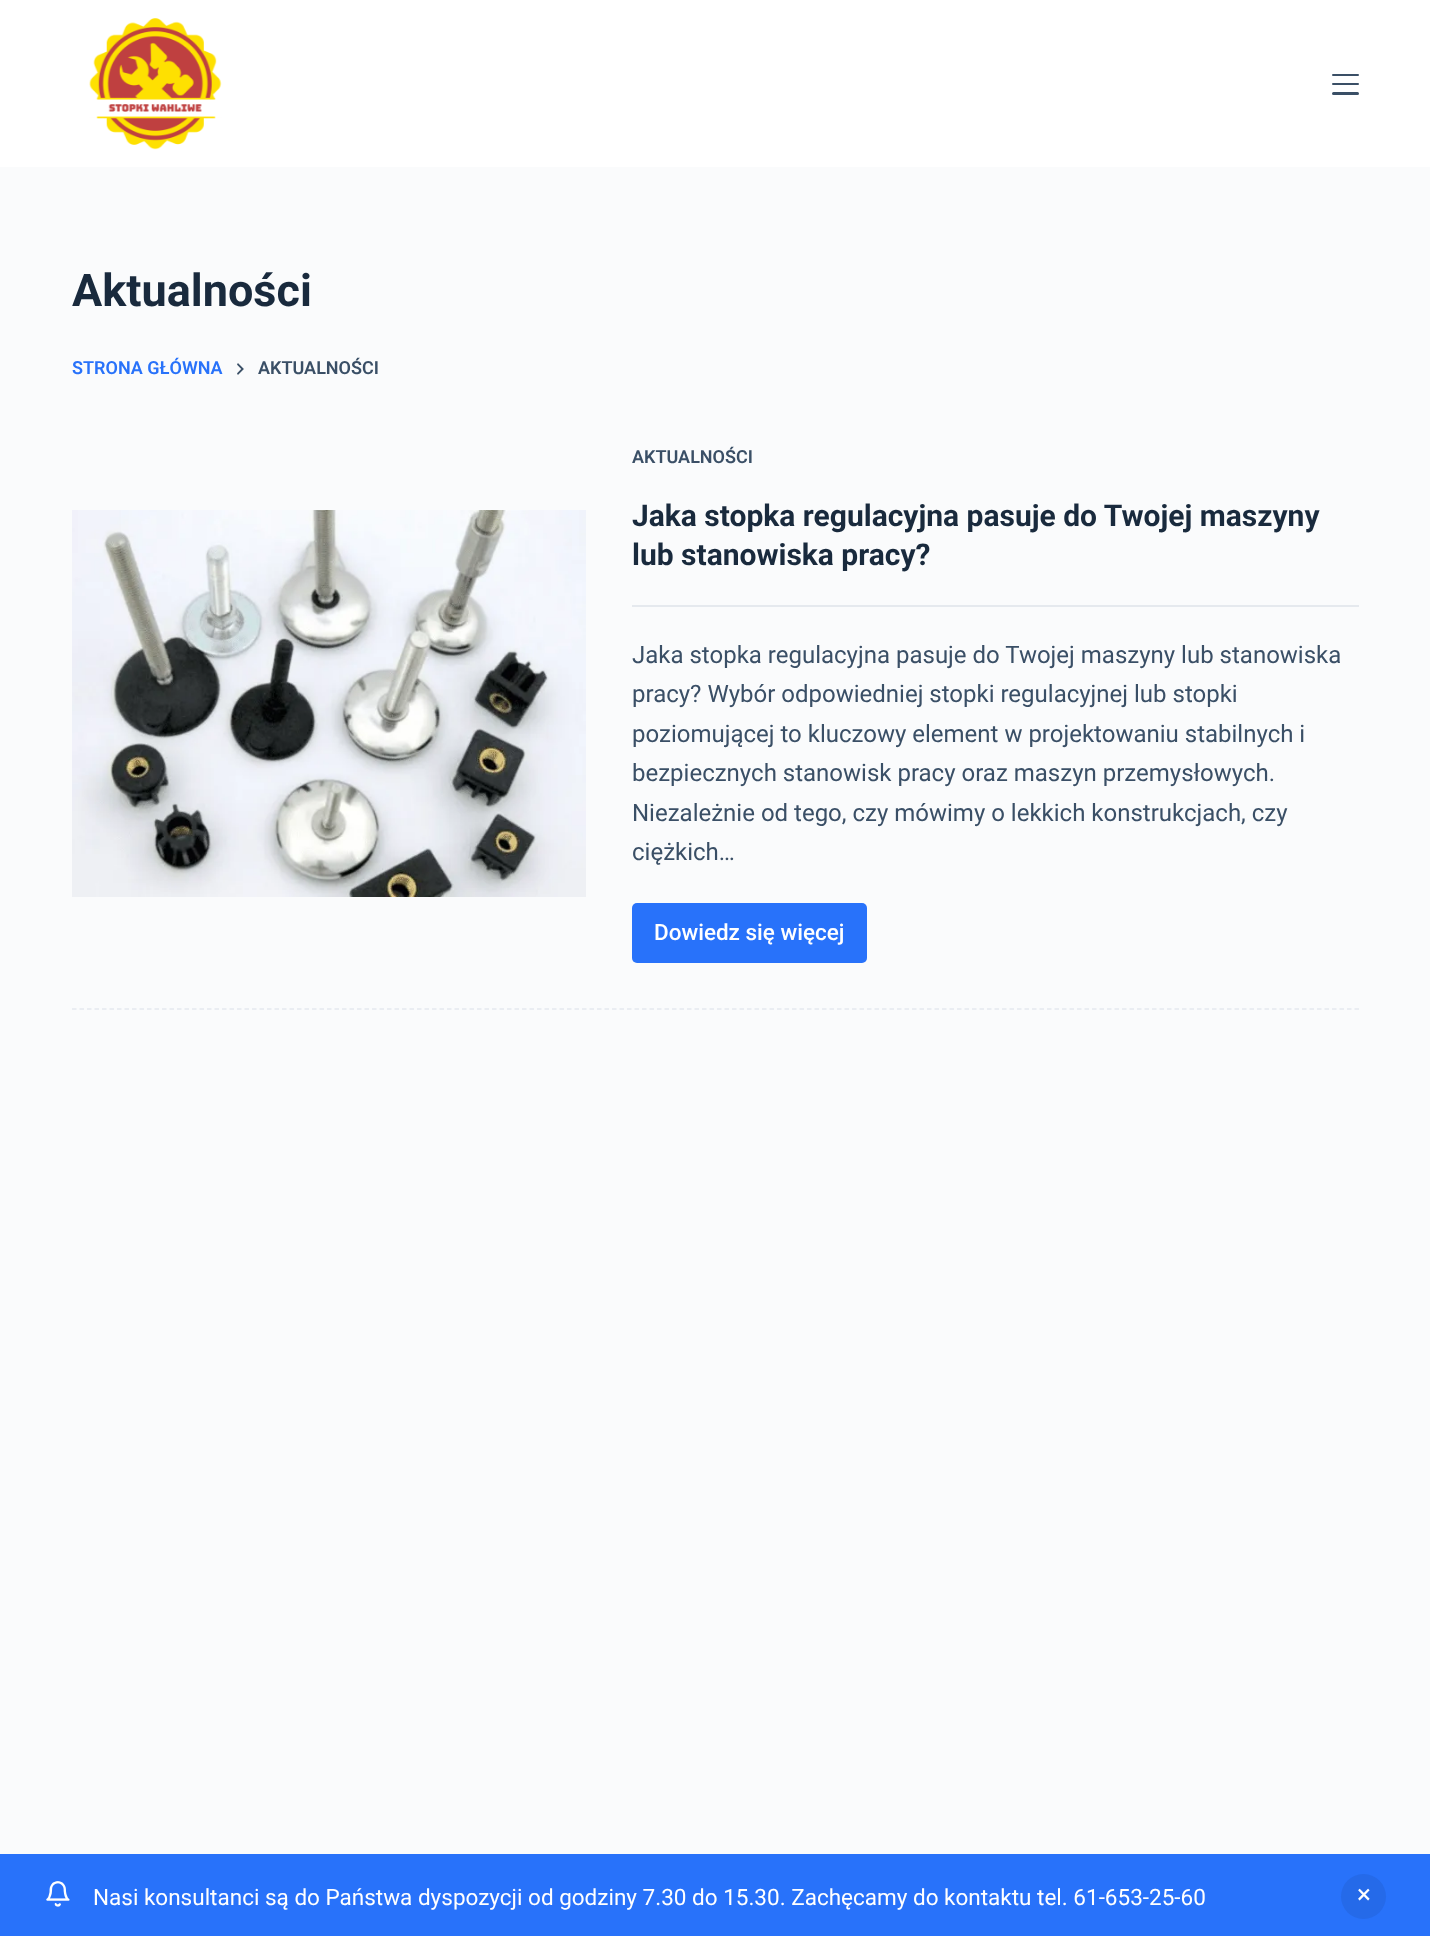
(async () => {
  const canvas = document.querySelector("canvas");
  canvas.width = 1430;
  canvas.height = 1936;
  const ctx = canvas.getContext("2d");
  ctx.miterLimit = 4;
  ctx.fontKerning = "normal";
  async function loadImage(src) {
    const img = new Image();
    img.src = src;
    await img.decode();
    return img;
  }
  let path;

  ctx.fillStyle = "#fafbfc";
  ctx.fillRect(0, 0, 1430, 1936);
  ctx.fillStyle = "#ffffff";
  ctx.fillRect(0, 0, 1430, 167);
  ctx.drawImage(await loadImage("img/1.png"), 89, 18, 133, 132);
  ctx.fillStyle = "#3a4f66";
  ctx.beginPath();
  ctx.roundRect(1332, 74, 27, 2, 1);
  ctx.fill();
  ctx.beginPath();
  ctx.roundRect(1332, 83, 27, 2, 1);
  ctx.fill();
  ctx.beginPath();
  ctx.roundRect(1332, 92, 27, 3, 1.5);
  ctx.fill();
  ctx.drawImage(await loadImage("img/2.png"), 237, 363, 7, 12);
  path = new Path2D("M72 1009H1359");
  ctx.strokeStyle = "#e5e9ee";
  ctx.lineWidth = 1.5;
  ctx.setLineDash([4.5, 3]);
  ctx.stroke(path);
  ctx.drawImage(await loadImage("img/3.png"), 72, 510, 514, 387);
  ctx.fillStyle = "#e5e9ee";
  ctx.fillRect(632, 605, 727, 2);
  ctx.fillStyle = "#2872fa";
  ctx.beginPath();
  ctx.roundRect(632, 903, 235, 60, 5);
  ctx.fill();
  ctx.fillRect(0, 1854, 1430, 82);
  ctx.drawImage(await loadImage("img/4.png"), 46, 1881, 24, 26);
  ctx.fillStyle = "#256ae9";
  ctx.beginPath();
  ctx.arc(1363.5, 1896.5, 22.5, 0, Math.PI * 2);
  ctx.fill();
  ctx.font = "bold 45px Roboto";
  ctx.fillStyle = "#192a3d";
  ctx.fillText("Aktualności", 72, 306);
  ctx.font = "600 18px Roboto";
  ctx.fillStyle = "#2872fa";
  ctx.fillText("STRONA GŁÓWNA", 72, 374);
  ctx.fillStyle = "#3a4f66";
  ctx.fillText("AKTUALNOŚCI", 258, 374);
  ctx.fillText("AKTUALNOŚCI", 632, 463);
  ctx.font = "bold 30px Roboto";
  ctx.fillStyle = "#192a3d";
  ctx.fillText("Jaka stopka regulacyjna pasuje do Twojej maszyny", 632, 526);
  ctx.fillText("lub stanowiska pracy?", 632, 565);
  ctx.font = "24px Roboto";
  ctx.fillStyle = "#3a4f66";
  for (const [text, x, y] of [
    ["Jaka stopka regulacyjna pasuje do Twojej maszyny lub stanowiska", 632, 663],
    ["pracy? Wybór odpowiedniej stopki regulacyjnej lub stopki", 632, 702],
    ["poziomującej to kluczowy element w projektowaniu stabilnych i", 632, 742],
    ["bezpiecznych stanowisk pracy oraz maszyn przemysłowych.", 632, 781],
    ["Niezależnie od tego, czy mówimy o lekkich konstrukcjach, czy", 632, 821],
    ["ciężkich…", 632, 860],
  ]) {
    ctx.fillText(text, x, y);
  }
  ctx.font = "500 22.5px Roboto";
  ctx.fillStyle = "#ffffff";
  ctx.fillText("Dowiedz się więcej", 654, 940);
  ctx.font = "22.5px Roboto";
  ctx.fillText("Nasi konsultanci są do Państwa dyspozycji od godziny 7.30 do 15.30. Zachęcamy do kontaktu tel. 61-653-25-60", 93, 1905);
  ctx.font = "26px Roboto";
  ctx.fillText("×", 1357, 1903);
})();
